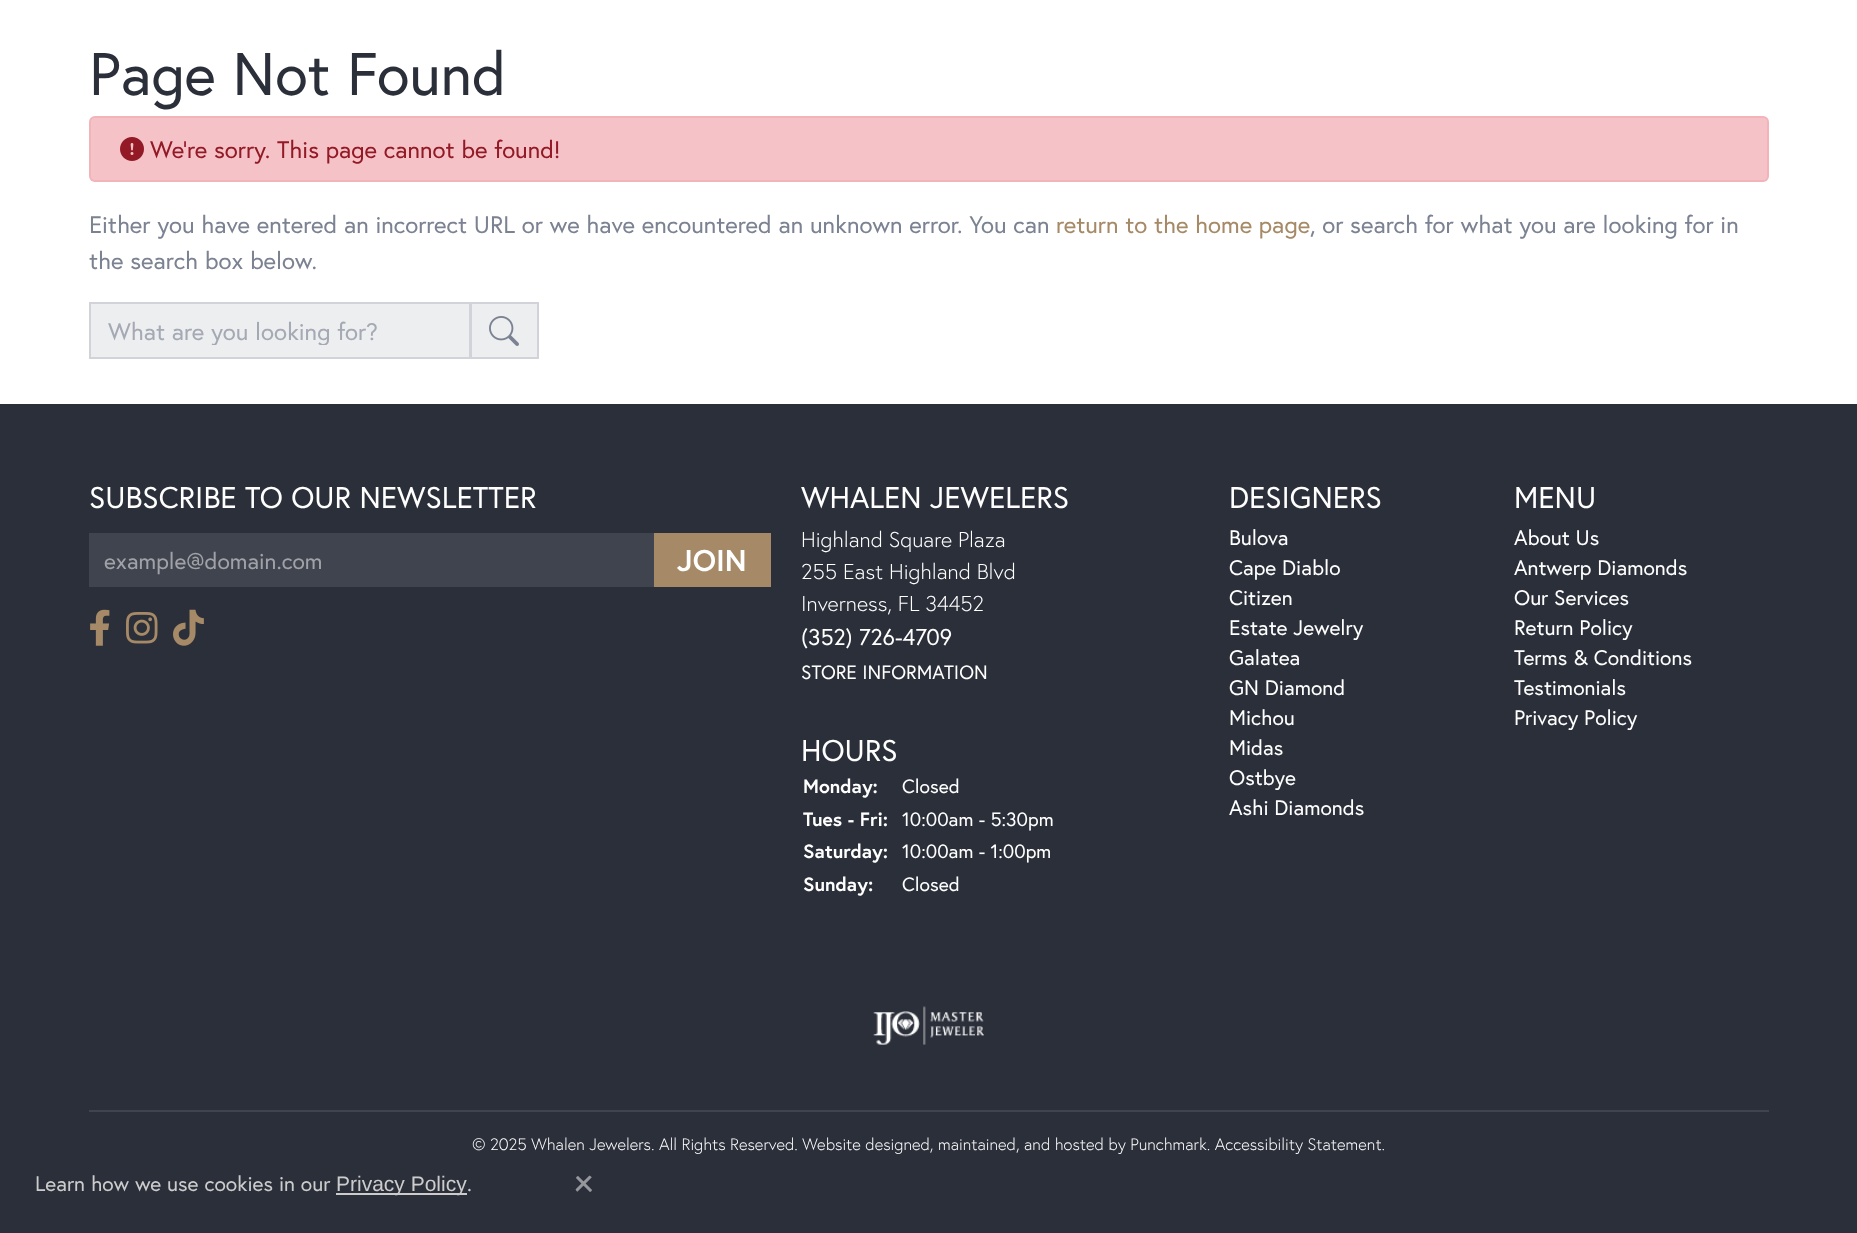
(async () => {
  const canvas = document.querySelector("canvas");
  canvas.width = 1857;
  canvas.height = 1233;
  const ctx = canvas.getContext("2d");
  ctx.miterLimit = 4;
  ctx.fontKerning = "normal";
  async function loadImage(src) {
    const img = new Image();
    img.src = src;
    await img.decode();
    return img;
  }

  ctx.fillStyle = "#ffffff";
  ctx.fillRect(0, 0, 1857, 1233);
  ctx.fillStyle = "#f5c3c7";
  ctx.beginPath();
  ctx.roundRect(89, 116, 1680, 66, 6);
  ctx.fill();
  ctx.beginPath();
  ctx.roundRect(90, 117, 1678, 64, 5);
  ctx.strokeStyle = "rgba(220, 53, 69, 0.1)";
  ctx.lineWidth = 2;
  ctx.stroke();
  ctx.drawImage(await loadImage("img/1.png"), 120, 137, 24, 24);
  ctx.fillStyle = "#edeef0";
  ctx.beginPath();
  ctx.rect(90, 303, 380, 55);
  ctx.fill();
  ctx.strokeStyle = "#d2d3d9";
  ctx.stroke();
  ctx.beginPath();
  ctx.rect(471, 303, 67, 55);
  ctx.fill();
  ctx.stroke();
  ctx.drawImage(await loadImage("img/2.png"), 489, 316, 30, 30);
  for (const [x, y, w, h, color] of [
    [0, 404, 1857, 829, "#2b2f3a"],
    [89, 533, 565, 54, "#40444e"],
    [654, 533, 117, 54, "#a68966"],
  ]) {
    ctx.fillStyle = color;
    ctx.fillRect(x, y, w, h);
  }
  ctx.drawImage(await loadImage("img/3.png"), 90, 609, 20, 37);
  ctx.drawImage(await loadImage("img/4.png"), 126, 612, 32, 32);
  ctx.drawImage(await loadImage("img/5.png"), 173, 609, 31, 37);
  ctx.drawImage(await loadImage("img/6.png"), 873, 1006, 111, 39);
  ctx.fillStyle = "#40444e";
  ctx.fillRect(89, 1110, 1680, 2);
  ctx.fillStyle = "#cccccc";
  ctx.fillRect(336, 1193, 131, 2);
  ctx.drawImage(await loadImage("img/7.png"), 575, 1175, 17, 17);
  ctx.font = "60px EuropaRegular";
  ctx.fillStyle = "#2b2f3a";
  ctx.fillText("Page Not Found", 89, 95);
  ctx.font = "24px EuropaRegular";
  ctx.fillStyle = "#921925";
  ctx.fillText("We're sorry. This page cannot be found!", 150, 158);
  ctx.fillStyle = "#7b8292";
  ctx.fillText("Either you have entered an incorrect URL or we have encountered an unknown error. You can", 89, 233);
  ctx.fillStyle = "#a68966";
  ctx.fillText("return to the home page", 1056, 233);
  ctx.fillStyle = "#7b8292";
  ctx.fillText(", or search for what you are looking for in", 1310, 233);
  ctx.fillText("the search box below.", 89, 269);
  ctx.save();
  ctx.beginPath();
  ctx.rect(108, 314, 344, 31);
  ctx.clip();
  ctx.fillStyle = "#a5a9b4";
  ctx.fillText("What are you looking for?", 108, 340);
  ctx.restore();
  ctx.font = "30px EuropaRegular";
  ctx.fillStyle = "#ffffff";
  ctx.fillText("SUBSCRIBE TO OUR NEWSLETTER", 89, 508);
  ctx.font = "22.75px EuropaRegular";
  ctx.fillStyle = "#a0a2a7";
  ctx.fillText("example@domain.com", 104, 569);
  ctx.font = "bold 30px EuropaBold";
  ctx.fillStyle = "#ffffff";
  ctx.fillText("JOIN", 677, 571);
  ctx.font = "30px EuropaRegular";
  ctx.fillText("WHALEN JEWELERS", 801, 508);
  ctx.font = "300 21.5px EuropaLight";
  for (const [text, x, y] of [
    ["Highland Square Plaza", 801, 547],
    ["255 East Highland Blvd", 801, 579],
    ["Inverness, FL 34452", 801, 611],
  ]) {
    ctx.fillText(text, x, y);
  }
  ctx.font = "22.75px EuropaRegular";
  ctx.fillText("(352) 726-4709", 801, 645);
  ctx.font = "19.25px EuropaRegular";
  ctx.fillText("STORE INFORMATION", 801, 679);
  ctx.font = "30px EuropaRegular";
  ctx.fillText("HOURS", 801, 761);
  ctx.font = "bold 19.25px EuropaBold";
  ctx.fillText("Monday:", 803, 793);
  ctx.font = "19.25px EuropaRegular";
  ctx.fillText("Closed", 902, 793);
  ctx.font = "bold 19.25px EuropaBold";
  ctx.fillText("Tues - Fri:", 803, 826);
  ctx.font = "19.25px EuropaRegular";
  ctx.fillText("10:00am - 5:30pm", 902, 826);
  ctx.font = "bold 19.25px EuropaBold";
  ctx.fillText("Saturday:", 803, 858);
  ctx.font = "19.25px EuropaRegular";
  ctx.fillText("10:00am - 1:00pm", 902, 858);
  ctx.font = "bold 19.25px EuropaBold";
  ctx.fillText("Sunday:", 803, 891);
  ctx.font = "19.25px EuropaRegular";
  ctx.fillText("Closed", 902, 891);
  ctx.font = "30px EuropaRegular";
  ctx.fillText("DESIGNERS", 1229, 508);
  ctx.font = "21px EuropaRegular";
  for (const [text, x, y] of [
    ["Bulova", 1229, 545],
    ["Cape Diablo", 1229, 575],
    ["Citizen", 1229, 605],
    ["Estate Jewelry", 1229, 635],
    ["Galatea", 1229, 665],
    ["GN Diamond", 1229, 695],
    ["Michou", 1229, 725],
    ["Midas", 1229, 755],
    ["Ostbye", 1229, 785],
    ["Ashi Diamonds", 1229, 815],
  ]) {
    ctx.fillText(text, x, y);
  }
  ctx.font = "30px EuropaRegular";
  ctx.fillText("MENU", 1514, 508);
  ctx.font = "21px EuropaRegular";
  for (const [text, x, y] of [
    ["About Us", 1514, 545],
    ["Antwerp Diamonds", 1514, 575],
    ["Our Services", 1514, 605],
    ["Return Policy", 1514, 635],
    ["Terms & Conditions", 1514, 665],
    ["Testimonials", 1514, 695],
    ["Privacy Policy", 1514, 725],
  ]) {
    ctx.fillText(text, x, y);
  }
  ctx.font = "300 16.5px EuropaLight";
  ctx.fillText("© 2025 Whalen Jewelers. All Rights Reserved. Website designed, maintained, and hosted by Punchmark. Accessibility Statement.", 472, 1150);
  ctx.font = "21px EuropaRegular";
  ctx.fillStyle = "#cccccc";
  ctx.fillText("Learn how we use cookies in our", 35, 1191);
  ctx.font = "21px Liberation Sans";
  ctx.fillText("Privacy Policy", 336, 1191);
  ctx.font = "21px EuropaRegular";
  ctx.fillText(".", 467, 1191);
})();
